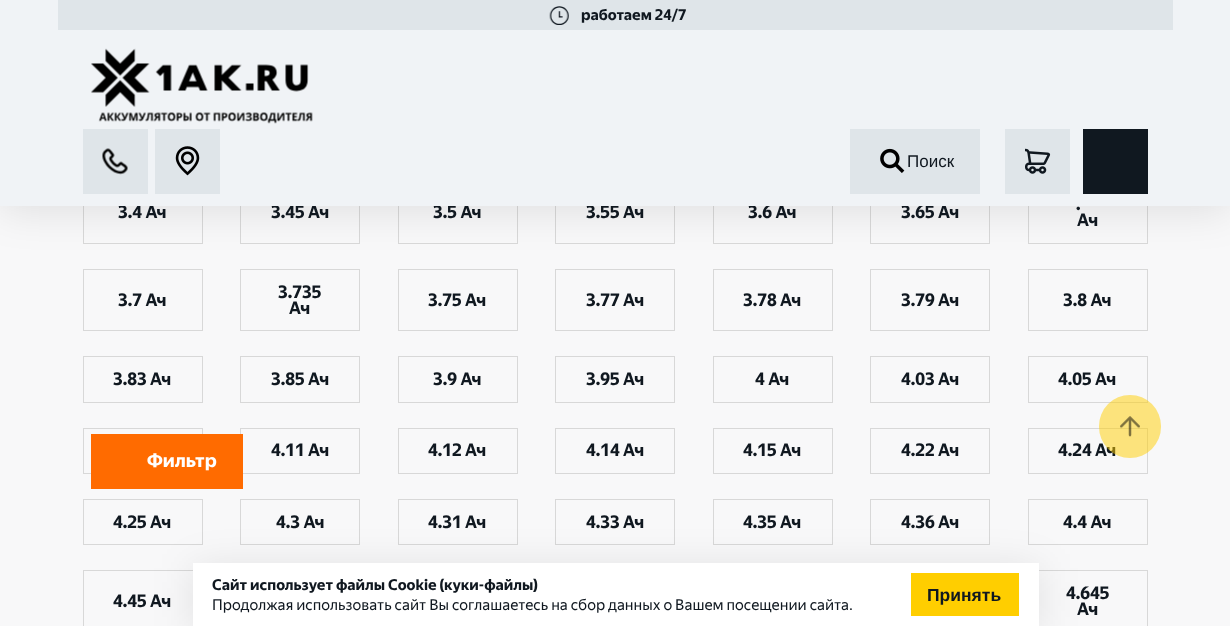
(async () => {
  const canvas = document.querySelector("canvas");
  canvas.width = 1230;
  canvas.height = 626;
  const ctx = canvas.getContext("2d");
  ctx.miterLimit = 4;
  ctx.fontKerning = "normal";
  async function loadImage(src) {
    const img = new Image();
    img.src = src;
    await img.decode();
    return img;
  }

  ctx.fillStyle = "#f8f8f9";
  ctx.fillRect(0, 0, 1230, 626);
  ctx.strokeStyle = "#d8d8d8";
  ctx.strokeRect(83.5, 181.5, 119, 62);
  ctx.strokeRect(240.5, 181.5, 119, 62);
  ctx.strokeRect(398.5, 181.5, 119, 62);
  ctx.strokeRect(555.5, 181.5, 119, 62);
  ctx.strokeRect(713.5, 181.5, 119, 62);
  ctx.strokeRect(870.5, 181.5, 119, 62);
  ctx.strokeRect(1028.5, 181.5, 119, 62);
  ctx.strokeRect(83.5, 269.5, 119, 61);
  ctx.strokeRect(240.5, 269.5, 119, 61);
  ctx.strokeRect(398.5, 269.5, 119, 61);
  ctx.strokeRect(555.5, 269.5, 119, 61);
  ctx.strokeRect(713.5, 269.5, 119, 61);
  ctx.strokeRect(870.5, 269.5, 119, 61);
  ctx.strokeRect(1028.5, 269.5, 119, 61);
  ctx.fillStyle = "rgba(0, 0, 0, 0.1)";
  ctx.filter = "blur(20px)";
  ctx.beginPath();
  ctx.rect(0, 5, 1230, 206);
  ctx.fill();
  ctx.filter = "none";
  ctx.strokeRect(83.5, 356.5, 119, 46);
  ctx.strokeRect(240.5, 356.5, 119, 46);
  ctx.strokeRect(398.5, 356.5, 119, 46);
  ctx.strokeRect(555.5, 356.5, 119, 46);
  ctx.strokeRect(713.5, 356.5, 119, 46);
  ctx.strokeRect(870.5, 356.5, 119, 46);
  ctx.strokeRect(1028.5, 356.5, 119, 46);
  ctx.strokeRect(83.5, 428.5, 119, 45);
  ctx.strokeRect(240.5, 428.5, 119, 45);
  ctx.strokeRect(398.5, 428.5, 119, 45);
  ctx.strokeRect(555.5, 428.5, 119, 45);
  ctx.strokeRect(713.5, 428.5, 119, 45);
  ctx.strokeRect(870.5, 428.5, 119, 45);
  ctx.strokeRect(1028.5, 428.5, 119, 45);
  ctx.strokeRect(83.5, 499.5, 119, 45);
  ctx.strokeRect(240.5, 499.5, 119, 45);
  ctx.strokeRect(398.5, 499.5, 119, 45);
  ctx.strokeRect(555.5, 499.5, 119, 45);
  ctx.strokeRect(713.5, 499.5, 119, 45);
  ctx.strokeRect(870.5, 499.5, 119, 45);
  ctx.strokeRect(1028.5, 499.5, 119, 45);
  ctx.strokeRect(83.5, 570.5, 119, 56);
  ctx.strokeRect(1028.5, 570.5, 119, 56);
  ctx.fillStyle = "#ff6b00";
  ctx.fillRect(91, 434, 152, 55);
  ctx.fillStyle = "rgba(0, 0, 0, 0.1)";
  ctx.filter = "blur(20px)";
  ctx.beginPath();
  ctx.rect(193, 568, 846, 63);
  ctx.fill();
  ctx.filter = "none";
  ctx.fillStyle = "#ffffff";
  ctx.fillRect(193, 563, 846, 63);
  ctx.fillStyle = "#ffce00";
  ctx.fillRect(911, 573, 108, 43);
  ctx.font = "bold 17.5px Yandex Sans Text";
  ctx.fillStyle = "#101820";
  for (const [text, x, y] of [
    ["3.4 Ач", 118, 218],
    ["3.45 Ач", 271, 218],
    ["3.5 Ач", 433, 218],
    ["3.55 Ач", 586, 218],
    ["3.6 Ач", 748, 218],
    ["3.65 Ач", 901, 218],
  ]) {
    ctx.fillText(text, x, y);
  }
  ctx.fillStyle = "#f0f3f6";
  ctx.fillRect(0, 0, 1230, 206);
  ctx.fillStyle = "#dfe5e9";
  ctx.fillRect(850, 129, 130, 65);
  ctx.drawImage(await loadImage("img/5.png"), 880, 148, 25, 25);
  ctx.font = "17px Liberation Sans";
  ctx.fillStyle = "#101820";
  ctx.fillText("Поиск", 907, 167);
  ctx.fillStyle = "#dfe5e9";
  ctx.fillRect(1005, 129, 65, 65);
  ctx.drawImage(await loadImage("img/6.png"), 1025, 148, 26, 26);
  ctx.fillRect(155, 129, 65, 65);
  ctx.drawImage(await loadImage("img/4.png"), 175, 146, 25, 30);
  ctx.fillRect(83, 129, 65, 65);
  ctx.drawImage(await loadImage("img/3.png"), 102, 148, 26, 27);
  ctx.fillStyle = "#101820";
  ctx.fillRect(1083, 129, 65, 65);
  ctx.fillStyle = "#dfe5e9";
  ctx.fillRect(58, 0, 1115, 30);
  ctx.drawImage(await loadImage("img/1.png"), 549, 6, 20, 19);
  ctx.drawImage(await loadImage("img/2.png"), 91, 48, 222, 76);
  ctx.font = "bold 15px Yandex Sans Text";
  ctx.fillStyle = "#101820";
  ctx.fillText("работаем 24/7", 581, 20);
  ctx.font = "bold 17.5px Yandex Sans Text";
  for (const [text, x, y] of [
    [".", 1076, 210],
    ["Ач", 1077, 226],
    ["3.7 Ач", 118, 306],
    ["3.735", 278, 298],
    ["Ач", 289, 314],
    ["3.75 Ач", 428, 306],
    ["3.77 Ач", 586, 306],
    ["3.78 Ач", 743, 306],
    ["3.79 Ач", 901, 306],
    ["3.8 Ач", 1063, 306],
    ["3.83 Ач", 113, 385],
    ["3.85 Ач", 271, 385],
    ["3.9 Ач", 433, 385],
    ["3.95 Ач", 586, 385],
    ["4 Ач", 755, 385],
    ["4.03 Ач", 901, 385],
    ["4.05 Ач", 1058, 385],
    ["4.11 Ач", 271, 456],
    ["4.12 Ач", 428, 456],
    ["4.14 Ач", 586, 456],
    ["4.15 Ач", 743, 456],
    ["4.22 Ач", 901, 456],
    ["4.24 Ач", 1058, 456],
    ["4.25 Ач", 113, 528],
    ["4.3 Ач", 276, 528],
    ["4.31 Ач", 428, 528],
    ["4.33 Ач", 586, 528],
    ["4.35 Ач", 743, 528],
    ["4.36 Ач", 901, 528],
    ["4.4 Ач", 1063, 528],
    ["4.45 Ач", 113, 607],
    ["4.645", 1066, 599],
    ["Ач", 1077, 615],
  ]) {
    ctx.fillText(text, x, y);
  }
  ctx.font = "bold 19px Yandex Sans Text";
  ctx.fillStyle = "#ffffff";
  ctx.fillText("Фильтр", 147, 467);
  ctx.fillStyle = "rgba(255, 206, 0, 0.5)";
  ctx.beginPath();
  ctx.roundRect(1099, 395, 62, 63, 31);
  ctx.fill();
  ctx.drawImage(await loadImage("img/7.png"), 1120, 416, 20, 21);
  ctx.font = "bold 15px Yandex Sans Text";
  ctx.fillStyle = "#101820";
  ctx.fillText("Сайт использует файлы Cookie (куки-файлы)", 212, 590);
  ctx.font = "15px Yandex Sans Text";
  ctx.fillText("Продолжая использовать сайт Вы соглашаетесь на сбор данных о Вашем посещении сайта.", 212, 610);
  ctx.font = "bold 17.5px Liberation Sans";
  ctx.fillText("Принять", 927, 601);
})();
